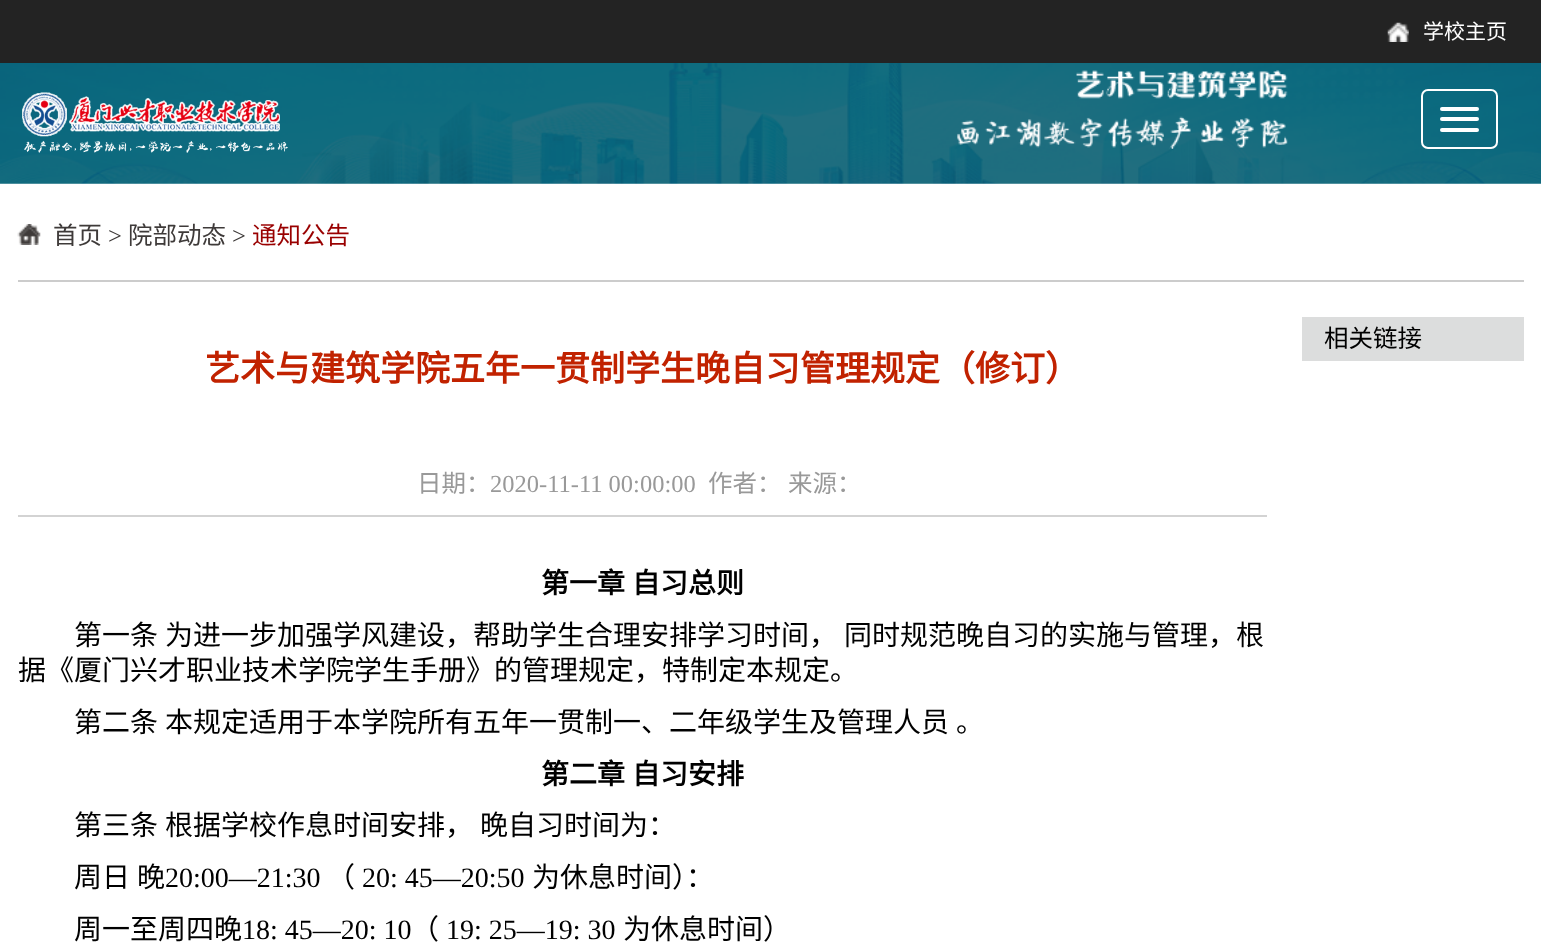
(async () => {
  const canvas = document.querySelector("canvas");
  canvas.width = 1541;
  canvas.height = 943;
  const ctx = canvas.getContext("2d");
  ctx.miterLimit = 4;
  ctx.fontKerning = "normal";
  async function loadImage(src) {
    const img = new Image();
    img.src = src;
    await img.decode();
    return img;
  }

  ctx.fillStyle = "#ffffff";
  ctx.fillRect(0, 0, 1541, 943);
  ctx.fillStyle = "#232323";
  ctx.fillRect(0, 0, 1541, 63);
  ctx.drawImage(await loadImage("img/1.png"), 1387, 22, 22, 20);
  ctx.drawImage(await loadImage("img/2.png"), 0, 63, 1541, 121);
  ctx.drawImage(await loadImage("img/3.png"), 22, 92, 266, 61);
  ctx.beginPath();
  ctx.roundRect(1422, 90, 75, 58, 6);
  ctx.strokeStyle = "#ffffff";
  ctx.lineWidth = 2;
  ctx.stroke();
  ctx.fillStyle = "#ffffff";
  ctx.beginPath();
  ctx.roundRect(1440, 107, 39, 4, 2);
  ctx.fill();
  ctx.beginPath();
  ctx.roundRect(1440, 117, 39, 4, 2);
  ctx.fill();
  ctx.beginPath();
  ctx.roundRect(1440, 128, 39, 4, 2);
  ctx.fill();
  ctx.drawImage(await loadImage("img/4.png"), 17, 224, 24, 21);
  for (const [x, y, w, h, color] of [
    [18, 280, 1506, 2, "#cccccc"],
    [1302, 317, 222, 44, "#dcdddd"],
    [18, 515, 1249, 2, "#d3d3d3"],
  ]) {
    ctx.fillStyle = color;
    ctx.fillRect(x, y, w, h);
  }
  ctx.font = "21px Noto Sans CJK SC";
  ctx.fillStyle = "#ffffff";
  ctx.fillText("学校主页", 1423, 39);
  ctx.font = "24.5px Noto Sans CJK SC";
  ctx.fillStyle = "#3e3a39";
  ctx.fillText("首页", 53, 244);
  ctx.font = "24.5px Liberation Serif";
  ctx.fillText(">", 108, 244);
  ctx.font = "24.5px Noto Sans CJK SC";
  ctx.fillText("院部动态", 128, 244);
  ctx.font = "24.5px Liberation Serif";
  ctx.fillText(">", 232, 244);
  ctx.font = "24.5px Noto Sans CJK SC";
  ctx.fillStyle = "#990000";
  ctx.fillText("通知公告", 252, 244);
  ctx.fillStyle = "#000000";
  ctx.fillText("相关链接", 1324, 347);
  ctx.font = "bold 35px Noto Sans CJK SC";
  ctx.fillStyle = "#c12200";
  ctx.fillText("艺术与建筑学院五年一贯制学生晚自习管理规定（修订）", 205, 381);
  ctx.font = "24.5px Noto Sans CJK SC";
  ctx.fillStyle = "#999999";
  ctx.fillText("日期：", 417, 492);
  ctx.font = "24.5px Liberation Serif";
  ctx.fillText("2020-11-11 00:00:00", 490, 492);
  ctx.font = "24.5px Noto Sans CJK SC";
  ctx.fillText("作者：", 708, 492);
  ctx.fillText("来源：", 788, 492);
  ctx.font = "bold 28px Noto Sans CJK SC";
  ctx.fillStyle = "#000000";
  ctx.fillText("第一章", 541, 593);
  ctx.fillText("自习总则", 632, 593);
  ctx.font = "28px Noto Sans CJK SC";
  for (const [text, x, y] of [
    ["第一条", 74, 645],
    ["为进一步加强学风建设，帮助学生合理安排学习时间，", 165, 645],
    ["同时规范晚自习的实施与管理，根", 844, 645],
    ["据《厦门兴才职业技术学院学生手册》的管理规定，特制定本规定。", 18, 680],
    ["第二条", 74, 732],
    ["本规定适用于本学院所有五年一贯制一、二年级学生及管理人员", 165, 732],
    ["。", 956, 732],
  ]) {
    ctx.fillText(text, x, y);
  }
  ctx.font = "bold 28px Noto Sans CJK SC";
  ctx.fillText("第二章", 541, 784);
  ctx.fillText("自习安排", 632, 784);
  ctx.font = "28px Noto Sans CJK SC";
  for (const [text, x, y] of [
    ["第三条", 74, 835],
    ["根据学校作息时间安排，", 165, 835],
    ["晚自习时间为：", 480, 835],
    ["周日", 74, 887],
    ["晚", 137, 887],
  ]) {
    ctx.fillText(text, x, y);
  }
  ctx.font = "28px Liberation Serif";
  ctx.fillText("20:00—21:30", 165, 887);
  ctx.font = "28px Noto Sans CJK SC";
  ctx.fillText("（", 327, 887);
  ctx.font = "28px Liberation Serif";
  ctx.fillText("20: 45—20:50", 362, 887);
  ctx.font = "28px Noto Sans CJK SC";
  ctx.fillText("为休息时间）：", 532, 887);
  ctx.fillText("周一至周四晚", 74, 939);
  ctx.font = "28px Liberation Serif";
  ctx.fillText("18: 45—20: 10", 242, 939);
  ctx.font = "28px Noto Sans CJK SC";
  ctx.fillText("（", 411, 939);
  ctx.font = "28px Liberation Serif";
  ctx.fillText("19: 25—19: 30", 446, 939);
  ctx.font = "28px Noto Sans CJK SC";
  ctx.fillText("为休息时间）", 623, 939);
})();
